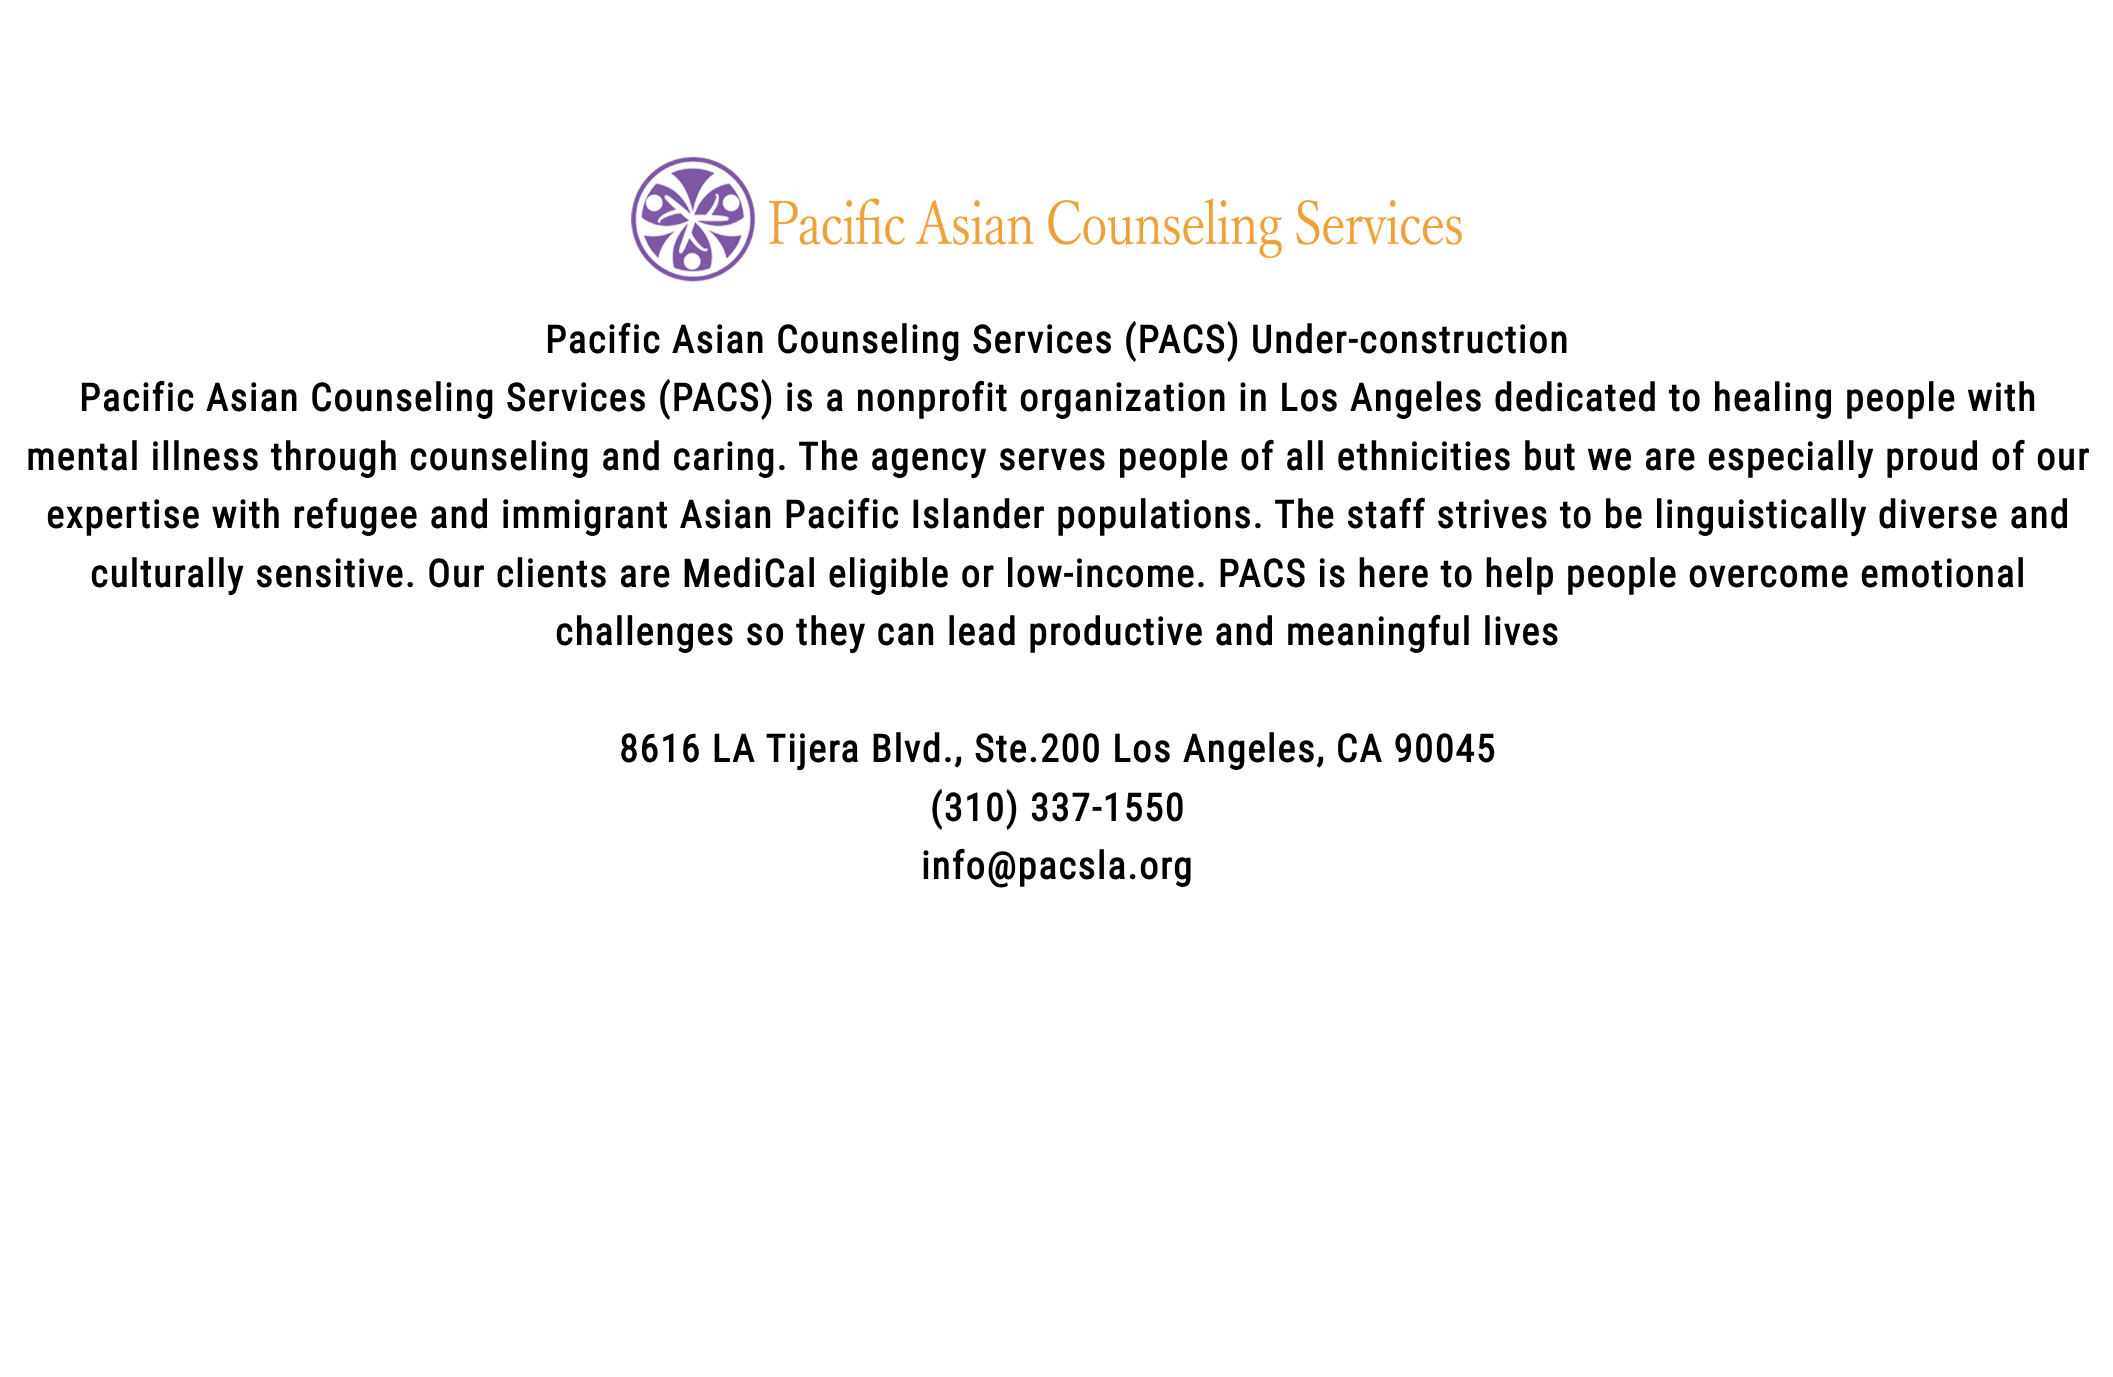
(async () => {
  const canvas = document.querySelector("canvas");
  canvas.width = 2113;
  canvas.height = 1377;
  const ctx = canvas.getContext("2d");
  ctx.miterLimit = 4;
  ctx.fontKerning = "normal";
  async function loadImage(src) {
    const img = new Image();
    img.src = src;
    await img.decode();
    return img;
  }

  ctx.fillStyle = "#ffffff";
  ctx.fillRect(0, 0, 2113, 1377);
  ctx.drawImage(await loadImage("img/1.png"), 631, 156, 831, 126);
  ctx.letterSpacing = "1.71px";
  ctx.font = "bold 38.25px Roboto Condensed";
  ctx.fillStyle = "#000000";
  for (const [text, x, y] of [
    ["Pacific Asian Counseling Services (PACS) Under-construction", 545, 353],
    ["Pacific Asian Counseling Services (PACS) is a nonprofit organization in Los Angeles dedicated to healing people with", 79, 411],
    ["mental illness through counseling and caring. The agency serves people of all ethnicities but we are especially proud of our", 26, 470],
    ["expertise with refugee and immigrant Asian Pacific Islander populations. The staff strives to be linguistically diverse and", 46, 528],
    ["culturally sensitive. Our clients are MediCal eligible or low-income. PACS is here to help people overcome emotional", 90, 587],
    ["challenges so they can lead productive and meaningful lives", 555, 645],
    ["8616 LA Tijera Blvd., Ste.200 Los Angeles, CA 90045", 619, 762],
    ["(310) 337-1550", 930, 821],
    ["info@pacsla.org", 921, 879],
  ]) {
    ctx.fillText(text, x, y);
  }
})();
